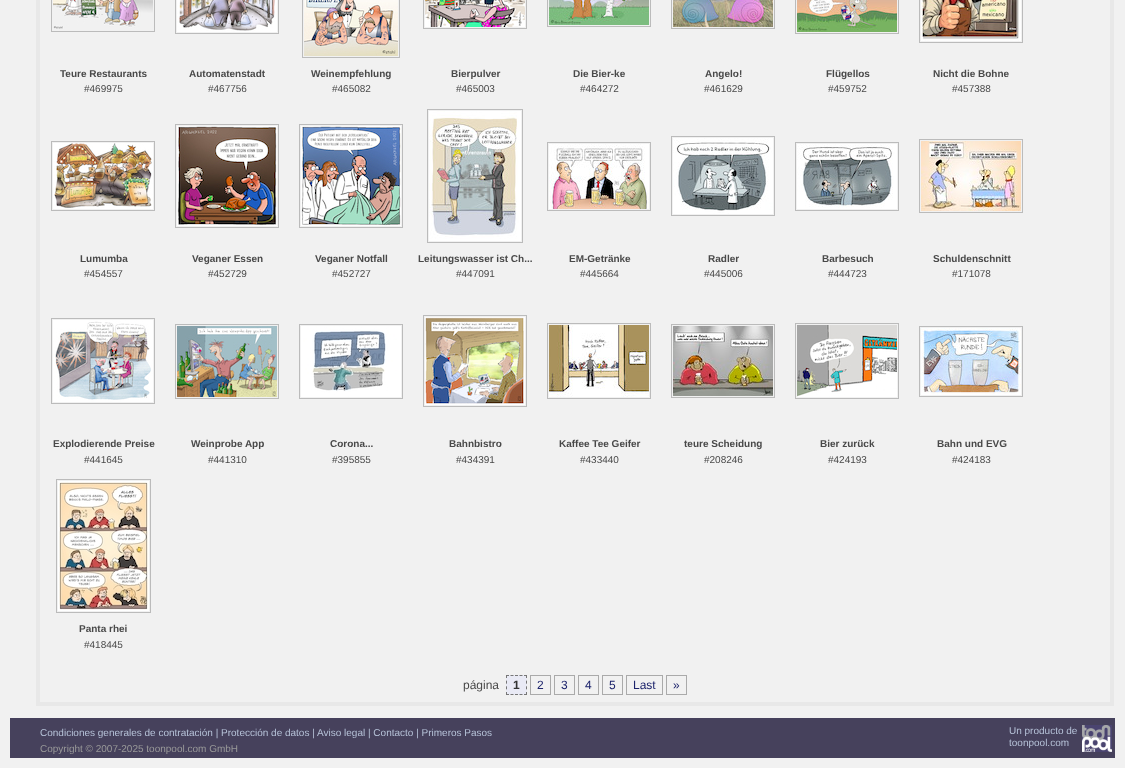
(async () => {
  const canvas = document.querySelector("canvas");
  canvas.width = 1125;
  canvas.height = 768;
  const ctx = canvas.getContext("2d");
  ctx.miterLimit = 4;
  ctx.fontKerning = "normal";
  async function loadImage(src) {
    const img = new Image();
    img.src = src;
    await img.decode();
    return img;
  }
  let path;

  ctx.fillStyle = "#f1f1f1";
  ctx.fillRect(0, 0, 1125, 768);
  ctx.strokeStyle = "#e8e8e8";
  ctx.lineWidth = 4;
  ctx.strokeRect(38, -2, 1074, 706);
  ctx.strokeStyle = "#bbbbbb";
  ctx.lineWidth = 1;
  ctx.strokeRect(51.5, -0.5, 103, 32);
  ctx.drawImage(await loadImage("img/1.png"), 53, 0, 100, 29);
  ctx.strokeRect(175.5, -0.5, 103, 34);
  ctx.drawImage(await loadImage("img/2.png"), 177, 0, 100, 32);
  ctx.strokeRect(302.5, -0.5, 97, 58);
  ctx.drawImage(await loadImage("img/3.png"), 304, 0, 94, 56);
  ctx.strokeRect(423.5, -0.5, 103, 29);
  ctx.drawImage(await loadImage("img/4.png"), 425, 0, 100, 27);
  ctx.strokeRect(547.5, -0.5, 103, 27);
  ctx.drawImage(await loadImage("img/5.png"), 549, 0, 100, 25);
  ctx.strokeRect(671.5, -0.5, 103, 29);
  ctx.drawImage(await loadImage("img/6.png"), 673, 0, 100, 27);
  ctx.strokeRect(795.5, -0.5, 103, 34);
  ctx.drawImage(await loadImage("img/7.png"), 797, 0, 100, 32);
  ctx.strokeRect(919.5, -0.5, 103, 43);
  ctx.drawImage(await loadImage("img/8.png"), 921, 0, 100, 41);
  ctx.strokeRect(51.5, 141.5, 103, 69);
  ctx.drawImage(await loadImage("img/9.png"), 53, 143, 100, 66);
  ctx.strokeRect(175.5, 124.5, 103, 103);
  ctx.drawImage(await loadImage("img/10.png"), 177, 126, 100, 100);
  ctx.strokeRect(299.5, 124.5, 103, 103);
  ctx.drawImage(await loadImage("img/11.png"), 301, 126, 100, 100);
  ctx.strokeRect(427.5, 109.5, 95, 133);
  ctx.drawImage(await loadImage("img/12.png"), 429, 111, 92, 130);
  ctx.strokeRect(547.5, 142.5, 103, 68);
  ctx.drawImage(await loadImage("img/13.png"), 549, 144, 100, 65);
  ctx.strokeRect(671.5, 136.5, 103, 79);
  ctx.drawImage(await loadImage("img/14.png"), 673, 138, 100, 76);
  ctx.strokeRect(795.5, 142.5, 103, 68);
  ctx.drawImage(await loadImage("img/15.png"), 797, 144, 100, 65);
  ctx.strokeRect(919.5, 139.5, 103, 73);
  ctx.drawImage(await loadImage("img/16.png"), 921, 141, 100, 70);
  ctx.strokeRect(51.5, 318.5, 103, 85);
  ctx.drawImage(await loadImage("img/17.png"), 53, 320, 100, 82);
  ctx.strokeRect(175.5, 324.5, 103, 74);
  ctx.drawImage(await loadImage("img/18.png"), 177, 326, 100, 71);
  ctx.strokeRect(299.5, 324.5, 103, 74);
  ctx.drawImage(await loadImage("img/19.png"), 301, 326, 100, 71);
  ctx.strokeRect(423.5, 315.5, 103, 91);
  ctx.drawImage(await loadImage("img/20.png"), 425, 317, 100, 88);
  ctx.strokeRect(547.5, 323.5, 103, 75);
  ctx.drawImage(await loadImage("img/21.png"), 549, 325, 100, 72);
  ctx.strokeRect(671.5, 324.5, 103, 73);
  ctx.drawImage(await loadImage("img/22.png"), 673, 326, 100, 70);
  ctx.strokeRect(795.5, 323.5, 103, 75);
  ctx.drawImage(await loadImage("img/23.png"), 797, 325, 100, 72);
  ctx.strokeRect(919.5, 326.5, 103, 70);
  ctx.drawImage(await loadImage("img/24.png"), 921, 328, 100, 67);
  ctx.strokeRect(56.5, 479.5, 94, 133);
  ctx.drawImage(await loadImage("img/25.png"), 58, 481, 91, 130);
  ctx.fillStyle = "#e9eaf5";
  ctx.fillRect(506, 675, 21, 20);
  path = new Path2D("M506 675.5H527");
  ctx.strokeStyle = "#777777";
  ctx.setLineDash([3, 1.5]);
  ctx.stroke(path);
  path = new Path2D("M526.5 675V695");
  ctx.setLineDash([3, 2.67]);
  ctx.stroke(path);
  path = new Path2D("M506 694.5H527");
  ctx.setLineDash([3, 1.5]);
  ctx.stroke(path);
  path = new Path2D("M506.5 675V695");
  ctx.setLineDash([3, 2.67]);
  ctx.stroke(path);
  ctx.strokeStyle = "#aaaaaa";
  ctx.setLineDash([]);
  ctx.strokeRect(530.5, 675.5, 20, 19);
  ctx.strokeRect(554.5, 675.5, 20, 19);
  ctx.strokeRect(578.5, 675.5, 20, 19);
  ctx.strokeRect(602.5, 675.5, 20, 19);
  ctx.strokeRect(626.5, 675.5, 36, 19);
  ctx.strokeRect(666.5, 675.5, 20, 19);
  ctx.fillStyle = "#46415c";
  ctx.fillRect(10, 718, 1105, 40);
  ctx.drawImage(await loadImage("img/26.png"), 1082, 725, 30, 27);
  ctx.font = "bold 10px Liberation Sans";
  ctx.fillStyle = "#494949";
  ctx.fillText("Teure Restaurants", 60, 77);
  ctx.font = "10px Liberation Sans";
  ctx.fillText("#469975", 84, 92);
  ctx.font = "bold 10px Liberation Sans";
  ctx.fillText("Automatenstadt", 189, 77);
  ctx.font = "10px Liberation Sans";
  ctx.fillText("#467756", 208, 92);
  ctx.font = "bold 10px Liberation Sans";
  ctx.fillText("Weinempfehlung", 311, 77);
  ctx.font = "10px Liberation Sans";
  ctx.fillText("#465082", 332, 92);
  ctx.font = "bold 10px Liberation Sans";
  ctx.fillText("Bierpulver", 451, 77);
  ctx.font = "10px Liberation Sans";
  ctx.fillText("#465003", 456, 92);
  ctx.font = "bold 10px Liberation Sans";
  ctx.fillText("Die Bier-ke", 573, 77);
  ctx.font = "10px Liberation Sans";
  ctx.fillText("#464272", 580, 92);
  ctx.font = "bold 10px Liberation Sans";
  ctx.fillText("Angelo!", 705, 77);
  ctx.font = "10px Liberation Sans";
  ctx.fillText("#461629", 704, 92);
  ctx.font = "bold 10px Liberation Sans";
  ctx.fillText("Flügellos", 826, 77);
  ctx.font = "10px Liberation Sans";
  ctx.fillText("#459752", 828, 92);
  ctx.font = "bold 10px Liberation Sans";
  ctx.fillText("Nicht die Bohne", 933, 77);
  ctx.font = "10px Liberation Sans";
  ctx.fillText("#457388", 952, 92);
  ctx.font = "bold 10px Liberation Sans";
  ctx.fillText("Lumumba", 80, 262);
  ctx.font = "10px Liberation Sans";
  ctx.fillText("#454557", 84, 277);
  ctx.font = "bold 10px Liberation Sans";
  ctx.fillText("Veganer Essen", 192, 262);
  ctx.font = "10px Liberation Sans";
  ctx.fillText("#452729", 208, 277);
  ctx.font = "bold 10px Liberation Sans";
  ctx.fillText("Veganer Notfall", 315, 262);
  ctx.font = "10px Liberation Sans";
  ctx.fillText("#452727", 332, 277);
  ctx.font = "bold 10px Liberation Sans";
  ctx.fillText("Leitungswasser ist Ch...", 418, 262);
  ctx.font = "10px Liberation Sans";
  ctx.fillText("#447091", 456, 277);
  ctx.font = "bold 10px Liberation Sans";
  ctx.fillText("EM-Getränke", 569, 262);
  ctx.font = "10px Liberation Sans";
  ctx.fillText("#445664", 580, 277);
  ctx.font = "bold 10px Liberation Sans";
  ctx.fillText("Radler", 708, 262);
  ctx.font = "10px Liberation Sans";
  ctx.fillText("#445006", 704, 277);
  ctx.font = "bold 10px Liberation Sans";
  ctx.fillText("Barbesuch", 822, 262);
  ctx.font = "10px Liberation Sans";
  ctx.fillText("#444723", 828, 277);
  ctx.font = "bold 10px Liberation Sans";
  ctx.fillText("Schuldenschnitt", 933, 262);
  ctx.font = "10px Liberation Sans";
  ctx.fillText("#171078", 952, 277);
  ctx.font = "bold 10px Liberation Sans";
  ctx.fillText("Explodierende Preise", 53, 447);
  ctx.font = "10px Liberation Sans";
  ctx.fillText("#441645", 84, 463);
  ctx.font = "bold 10px Liberation Sans";
  ctx.fillText("Weinprobe App", 191, 447);
  ctx.font = "10px Liberation Sans";
  ctx.fillText("#441310", 208, 463);
  ctx.font = "bold 10px Liberation Sans";
  ctx.fillText("Corona...", 330, 447);
  ctx.font = "10px Liberation Sans";
  ctx.fillText("#395855", 332, 463);
  ctx.font = "bold 10px Liberation Sans";
  ctx.fillText("Bahnbistro", 449, 447);
  ctx.font = "10px Liberation Sans";
  ctx.fillText("#434391", 456, 463);
  ctx.font = "bold 10px Liberation Sans";
  ctx.fillText("Kaffee Tee Geifer", 559, 447);
  ctx.font = "10px Liberation Sans";
  ctx.fillText("#433440", 580, 463);
  ctx.font = "bold 10px Liberation Sans";
  ctx.fillText("teure Scheidung", 684, 447);
  ctx.font = "10px Liberation Sans";
  ctx.fillText("#208246", 704, 463);
  ctx.font = "bold 10px Liberation Sans";
  ctx.fillText("Bier zurück", 820, 447);
  ctx.font = "10px Liberation Sans";
  ctx.fillText("#424193", 828, 463);
  ctx.font = "bold 10px Liberation Sans";
  ctx.fillText("Bahn und EVG", 937, 447);
  ctx.font = "10px Liberation Sans";
  ctx.fillText("#424183", 952, 463);
  ctx.font = "bold 10px Liberation Sans";
  ctx.fillText("Panta rhei", 79, 632);
  ctx.font = "10px Liberation Sans";
  ctx.fillText("#418445", 84, 648);
  ctx.font = "12px Liberation Sans";
  ctx.fillText("página", 463, 689);
  ctx.font = "bold 12px Liberation Sans";
  ctx.fillStyle = "#333333";
  ctx.fillText("1", 513, 689);
  ctx.font = "12px Liberation Sans";
  ctx.fillStyle = "#1d246c";
  for (const [text, x, y] of [
    ["2", 537, 689],
    ["3", 561, 689],
    ["4", 585, 689],
    ["5", 609, 689],
    ["Last", 633, 689],
    ["»", 673, 689],
  ]) {
    ctx.fillText(text, x, y);
  }
  ctx.font = "10px Liberation Sans";
  ctx.fillStyle = "#b6c2d8";
  ctx.fillText("Condiciones generales de contratación | Protección de datos | Aviso legal | Contacto | Primeros Pasos", 40, 736);
  ctx.fillStyle = "#999999";
  ctx.fillText("Copyright © 2007-2025 toonpool.com GmbH", 40, 752);
  ctx.fillStyle = "#b6c2d8";
  ctx.fillText("Un producto de", 1009, 734);
  ctx.fillText("toonpool.com", 1009, 746);
})();
